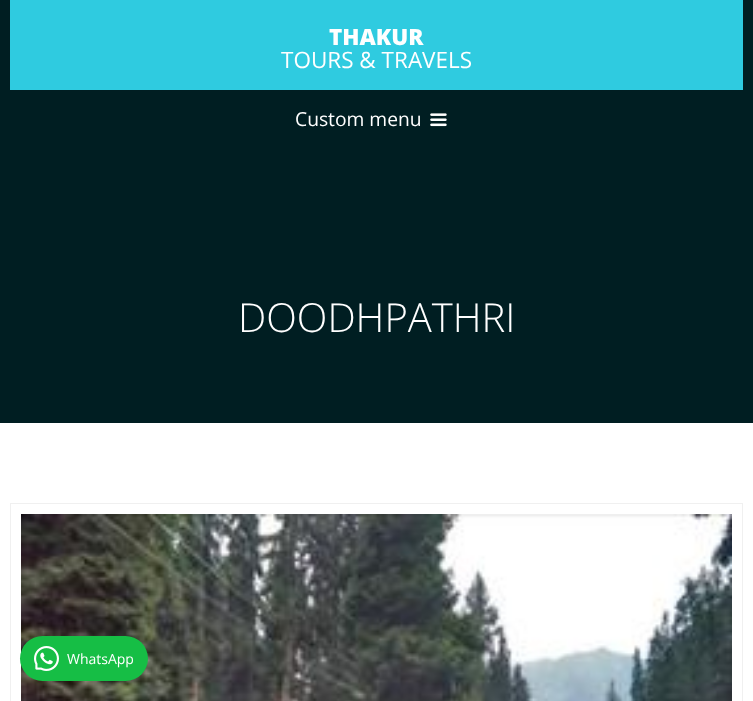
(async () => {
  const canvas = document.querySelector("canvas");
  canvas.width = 753;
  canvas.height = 701;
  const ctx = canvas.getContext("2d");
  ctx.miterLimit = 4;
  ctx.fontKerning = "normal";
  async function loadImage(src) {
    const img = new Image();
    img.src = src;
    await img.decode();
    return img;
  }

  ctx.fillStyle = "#001e22";
  ctx.fillRect(0, 0, 753, 701);
  ctx.fillStyle = "#2fcbe0";
  ctx.fillRect(10, 0, 733, 90);
  ctx.drawImage(await loadImage("img/1.png"), 430, 113, 17, 14);
  for (const [x, y, w, h, color] of [
    [0, 423, 753, 278, "#ffffff"],
    [10, 503, 733, 1, "#f0f0f0"],
    [742, 503, 1, 198, "#f0f0f0"],
    [10, 503, 1, 198, "#f0f0f0"],
  ]) {
    ctx.fillStyle = color;
    ctx.fillRect(x, y, w, h);
  }
  ctx.drawImage(await loadImage("img/2.png"), 21, 514, 711, 187);
  ctx.fillStyle = "#16be45";
  ctx.beginPath();
  ctx.roundRect(20, 636, 128, 45, 22.5);
  ctx.fill();
  ctx.drawImage(await loadImage("img/3.png"), 34, 646, 25, 25);
  ctx.font = "800 22.5px Open Sans";
  ctx.fillStyle = "#ffffff";
  ctx.fillText("THAKUR", 329, 45);
  ctx.font = "22.5px Open Sans";
  ctx.fillText("TOURS & TRAVELS", 281, 68);
  ctx.font = "19.25px Open Sans";
  ctx.fillText("Custom menu", 295, 126);
  ctx.font = "300 40px Open Sans";
  ctx.fillText("DOODHPATHRI", 238, 332);
  ctx.font = "14px Open Sans";
  ctx.fillText("WhatsApp", 67, 664);
})();
